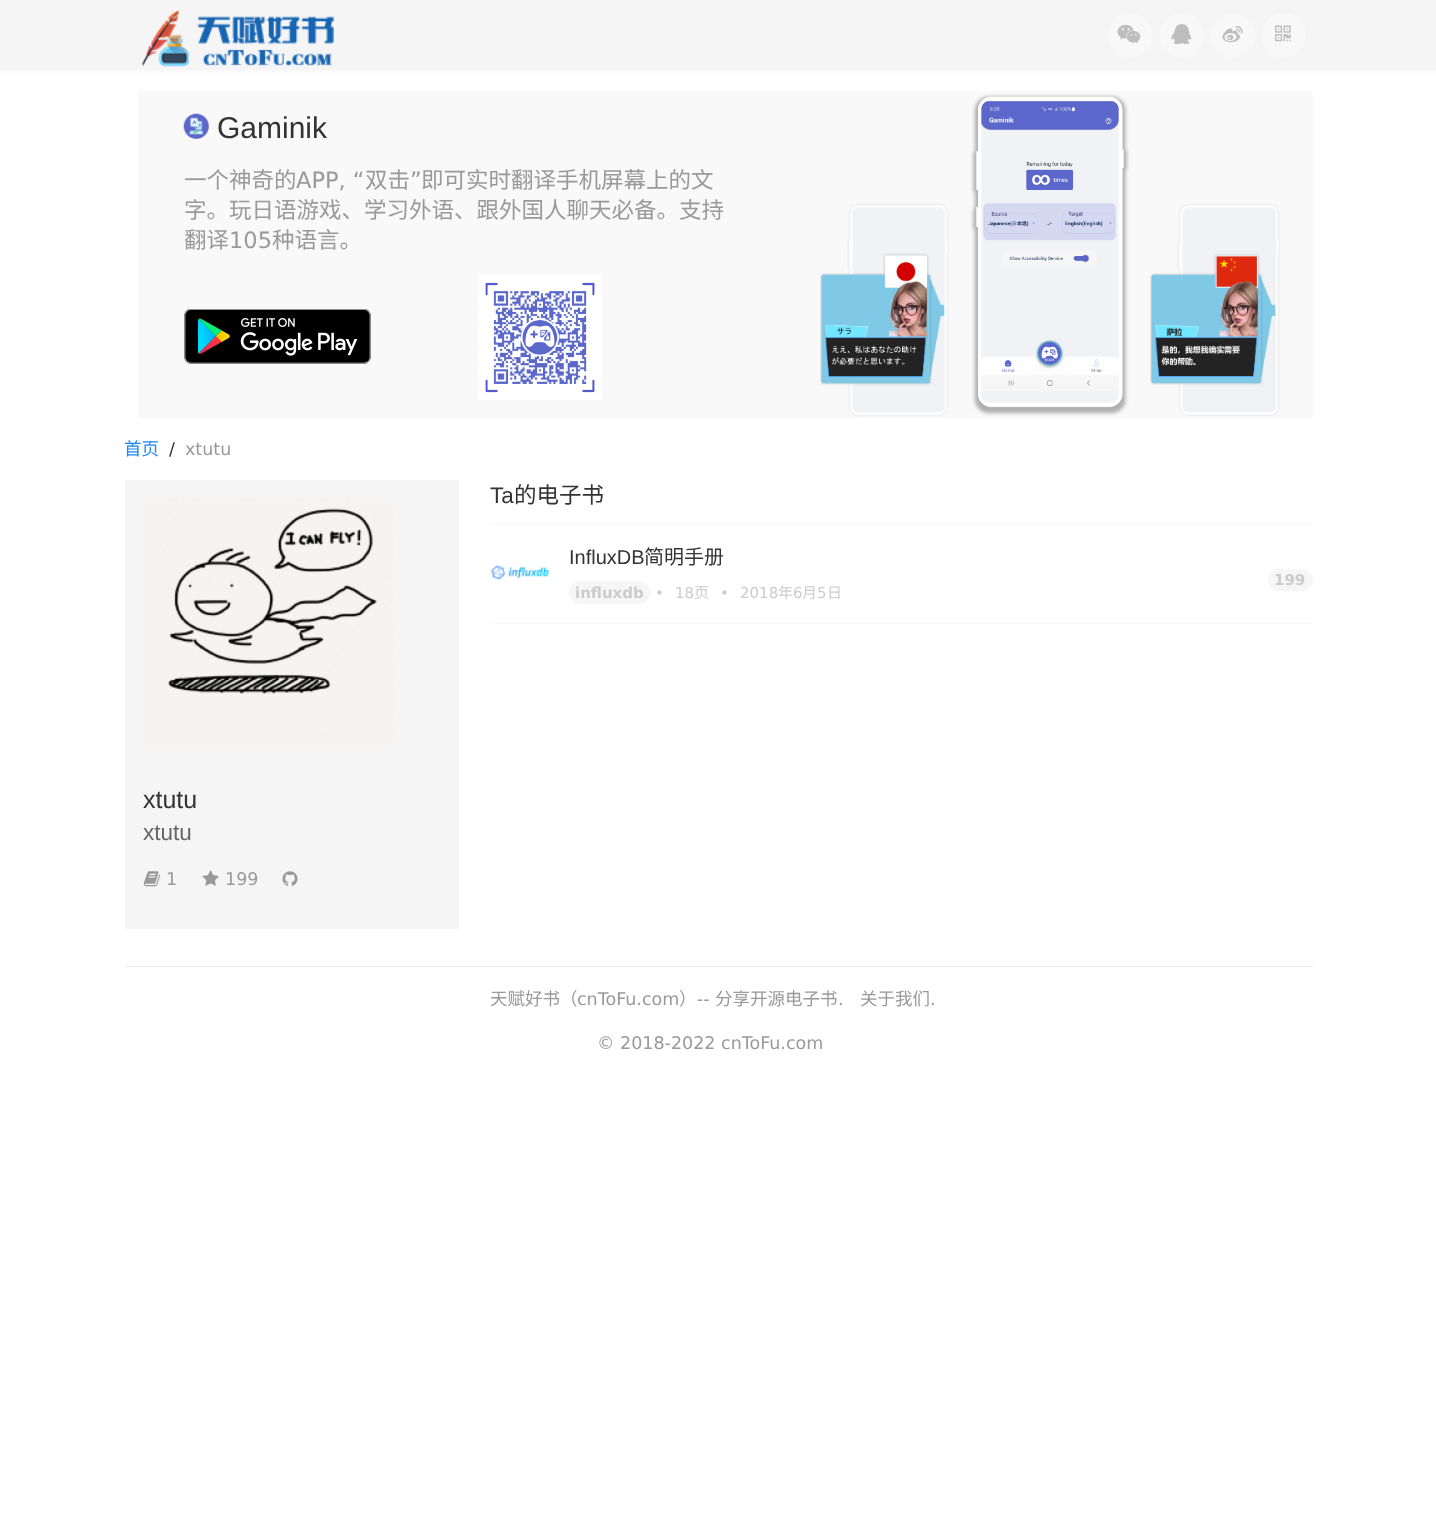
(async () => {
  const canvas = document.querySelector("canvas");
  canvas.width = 1436;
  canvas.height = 1514;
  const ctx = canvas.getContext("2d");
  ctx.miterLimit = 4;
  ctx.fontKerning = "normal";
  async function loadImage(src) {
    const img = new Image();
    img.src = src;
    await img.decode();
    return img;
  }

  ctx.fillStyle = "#ffffff";
  ctx.fillRect(0, 0, 1436, 1514);
  ctx.fillStyle = "#f5f5f5";
  ctx.fillRect(0, 0, 1436, 70);
  ctx.fillStyle = "#fafafa";
  ctx.fillRect(0, 70, 1436, 3);
  ctx.drawImage(await loadImage("img/1.png"), 142, 10, 192, 57);
  ctx.fillStyle = "#f8f8f8";
  ctx.beginPath();
  ctx.arc(1130.5, 35.5, 22.5, 0, Math.PI * 2);
  ctx.fill();
  ctx.drawImage(await loadImage("img/2.png"), 1117, 24, 24, 20);
  ctx.beginPath();
  ctx.arc(1181.5, 35.5, 22.5, 0, Math.PI * 2);
  ctx.fill();
  ctx.drawImage(await loadImage("img/3.png"), 1171, 24, 20, 21);
  ctx.beginPath();
  ctx.arc(1232.5, 35.5, 22.5, 0, Math.PI * 2);
  ctx.fill();
  ctx.drawImage(await loadImage("img/4.png"), 1222, 26, 21, 17);
  ctx.beginPath();
  ctx.arc(1283.5, 35.5, 22.5, 0, Math.PI * 2);
  ctx.fill();
  ctx.drawImage(await loadImage("img/5.png"), 1275, 25, 16, 17);
  ctx.fillStyle = "#f9f9f9";
  ctx.fillRect(138, 91, 1175, 327);
  ctx.drawImage(await loadImage("img/6.png"), 183, 113, 26, 26);
  ctx.drawImage(await loadImage("img/7.png"), 184, 309, 187, 55);
  ctx.drawImage(await loadImage("img/8.png"), 478, 275, 124, 125);
  ctx.drawImage(await loadImage("img/9.png"), 820, 203, 129, 214);
  ctx.drawImage(await loadImage("img/10.png"), 970, 94, 160, 322);
  ctx.drawImage(await loadImage("img/11.png"), 1150, 203, 130, 213);
  ctx.fillStyle = "#f8f8f8";
  ctx.fillRect(490, 523, 823, 1);
  ctx.drawImage(await loadImage("img/12.png"), 491, 565, 58, 15);
  ctx.fillStyle = "#f6f6f6";
  ctx.beginPath();
  ctx.roundRect(1268, 569, 45, 22, 11);
  ctx.fill();
  ctx.beginPath();
  ctx.roundRect(569, 581, 81, 23, 11.5);
  ctx.fill();
  ctx.fillStyle = "#f8f8f8";
  ctx.fillRect(490, 623, 823, 1);
  ctx.fillStyle = "#f5f5f5";
  ctx.fillRect(125, 480, 334, 449);
  ctx.drawImage(await loadImage("img/13.png"), 144, 499, 250, 250);
  ctx.drawImage(await loadImage("img/14.png"), 143, 871, 17, 16);
  ctx.drawImage(await loadImage("img/15.png"), 202, 870, 17, 16);
  ctx.drawImage(await loadImage("img/16.png"), 282, 871, 16, 15);
  ctx.fillStyle = "#ebedef";
  ctx.fillRect(125, 966, 1188, 1);
  ctx.font = "30px Liberation Sans";
  ctx.fillStyle = "#333333";
  ctx.fillText("Gaminik", 217, 138);
  ctx.font = "22.5px Noto Sans CJK SC";
  ctx.fillStyle = "#999999";
  ctx.fillText("一个神奇的", 184, 188);
  ctx.font = "22.5px DejaVu Sans";
  ctx.fillText("APP, “", 296, 188);
  ctx.font = "22.5px Noto Sans CJK SC";
  ctx.fillText("双击", 365, 188);
  ctx.font = "22.5px DejaVu Sans";
  ctx.fillText("”", 410, 188);
  ctx.font = "22.5px Noto Sans CJK SC";
  for (const [text, x, y] of [
    ["即可实时翻译手机屏幕上的文", 421, 188],
    ["字。玩日语游戏、学习外语、跟外国人聊天必备。支持", 184, 218],
    ["翻译", 184, 248],
  ]) {
    ctx.fillText(text, x, y);
  }
  ctx.font = "22.5px DejaVu Sans";
  ctx.fillText("105", 229, 248);
  ctx.font = "22.5px Noto Sans CJK SC";
  ctx.fillText("种语言。", 272, 248);
  ctx.font = "17.5px Noto Sans CJK SC";
  ctx.fillStyle = "#1e87f0";
  ctx.fillText("首页", 124, 455);
  ctx.font = "17.5px DejaVu Sans";
  ctx.fillStyle = "#333333";
  ctx.fillText("/", 169, 455);
  ctx.fillStyle = "#999999";
  ctx.fillText("xtutu", 185, 455);
  ctx.font = "22.5px Liberation Sans";
  ctx.fillStyle = "#333333";
  ctx.fillText("Ta", 490, 503);
  ctx.font = "22.5px Noto Sans CJK SC";
  ctx.fillText("的电子书", 514, 503);
  ctx.font = "20px Liberation Sans";
  ctx.fillText("InfluxDB", 569, 564);
  ctx.font = "20px Noto Sans CJK SC";
  ctx.fillText("简明手册", 644, 564);
  ctx.font = "bold 15px DejaVu Sans";
  ctx.fillStyle = "#cccccc";
  ctx.fillText("199", 1274, 585);
  ctx.fillText("influxdb", 575, 598);
  ctx.font = "15px DejaVu Sans";
  ctx.fillText("•", 655, 598);
  ctx.fillText("18", 675, 598);
  ctx.font = "15px Noto Sans CJK SC";
  ctx.fillText("页", 694, 598);
  ctx.font = "15px DejaVu Sans";
  ctx.fillText("•", 720, 598);
  ctx.fillText("2018", 740, 598);
  ctx.font = "15px Noto Sans CJK SC";
  ctx.fillText("年", 778, 598);
  ctx.font = "15px DejaVu Sans";
  ctx.fillText("6", 793, 598);
  ctx.font = "15px Noto Sans CJK SC";
  ctx.fillText("月", 802, 598);
  ctx.font = "15px DejaVu Sans";
  ctx.fillText("5", 817, 598);
  ctx.font = "15px Noto Sans CJK SC";
  ctx.fillText("日", 827, 598);
  ctx.font = "25px Liberation Sans";
  ctx.fillStyle = "#333333";
  ctx.fillText("xtutu", 143, 808);
  ctx.font = "22.5px Liberation Sans";
  ctx.fillStyle = "#666666";
  ctx.fillText("xtutu", 143, 840);
  ctx.font = "17.5px DejaVu Sans";
  ctx.fillStyle = "#999999";
  ctx.fillText("1", 166, 885);
  ctx.fillText("199", 225, 885);
  ctx.font = "17.5px Noto Sans CJK SC";
  ctx.fillText("天赋好书（", 490, 1005);
  ctx.font = "17.5px DejaVu Sans";
  ctx.fillText("cnToFu.com", 577, 1005);
  ctx.font = "17.5px Noto Sans CJK SC";
  ctx.fillText("）", 679, 1005);
  ctx.font = "17.5px DejaVu Sans";
  ctx.fillText("--", 697, 1005);
  ctx.font = "17.5px Noto Sans CJK SC";
  ctx.fillText("分享开源电子书", 715, 1005);
  ctx.fillText("关于我们", 860, 1005);
  ctx.font = "17.5px DejaVu Sans";
  for (const [text, x, y] of [
    [".", 838, 1005],
    [".", 930, 1005],
    ["© 2018-2022 cnToFu.com", 597, 1049],
  ]) {
    ctx.fillText(text, x, y);
  }
})();
